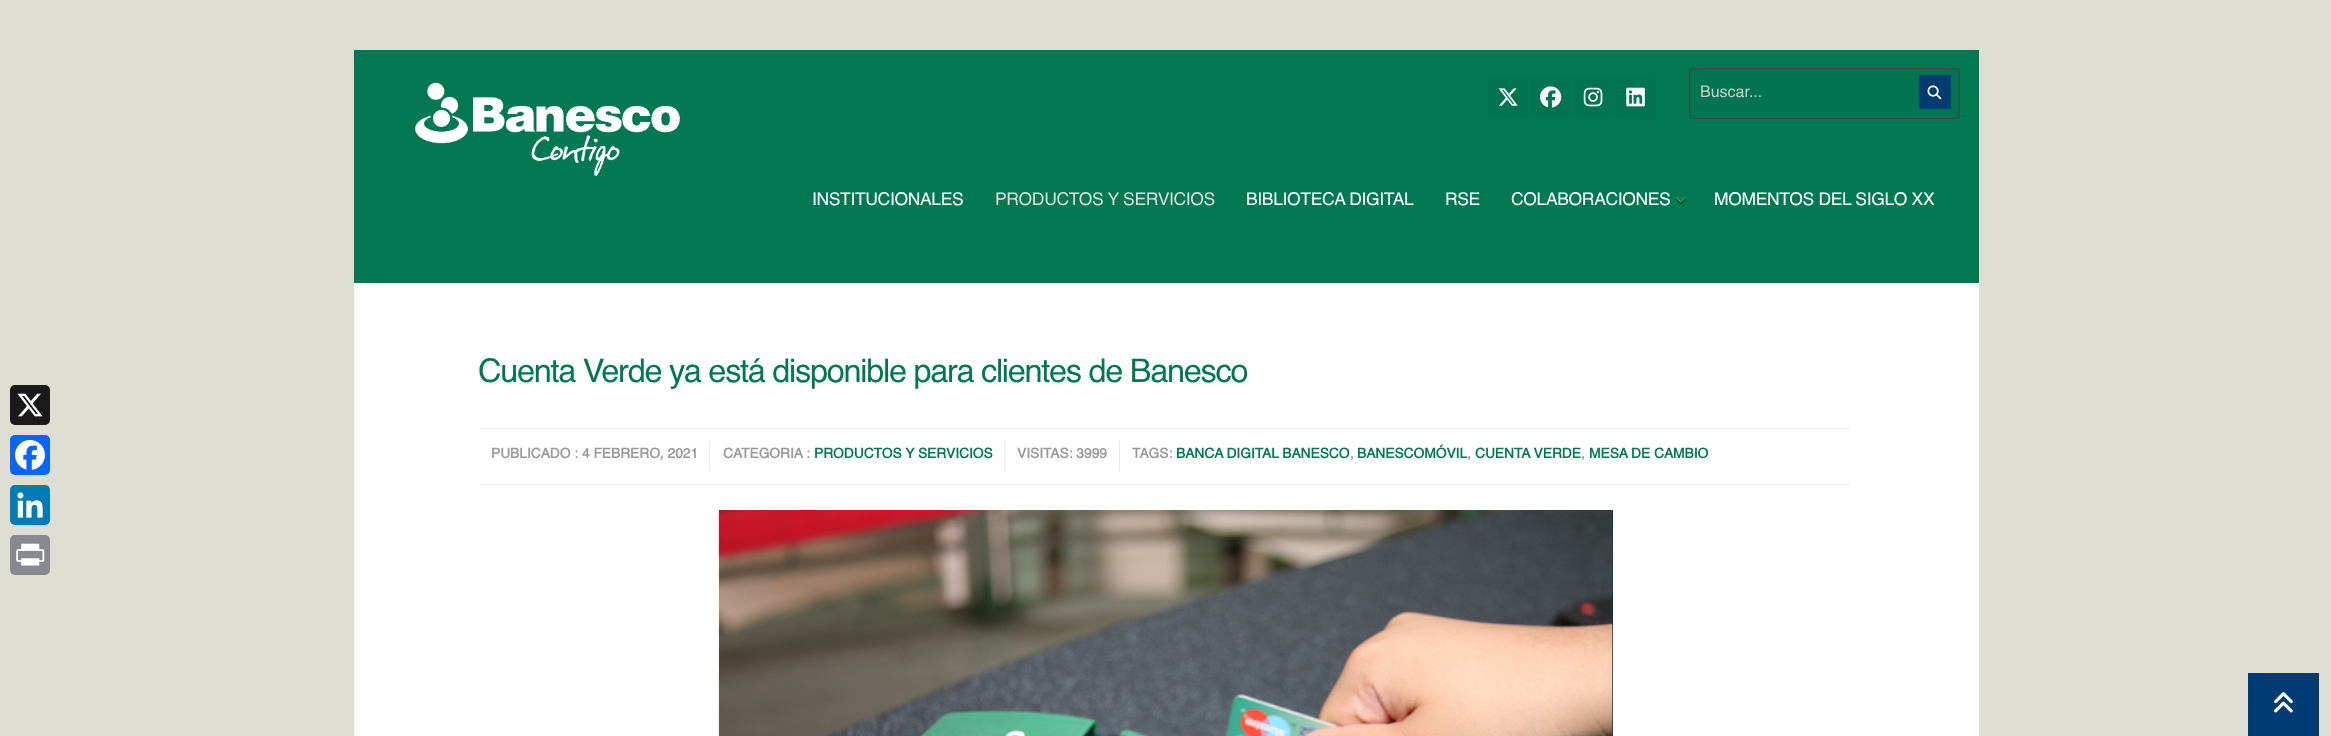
(async () => {
  const canvas = document.querySelector("canvas");
  canvas.width = 2331;
  canvas.height = 736;
  const ctx = canvas.getContext("2d");
  ctx.miterLimit = 4;
  ctx.fontKerning = "normal";
  async function loadImage(src) {
    const img = new Image();
    img.src = src;
    await img.decode();
    return img;
  }

  ctx.fillStyle = "#deded5";
  ctx.fillRect(0, 0, 2331, 736);
  ctx.fillStyle = "#007953";
  ctx.fillRect(354, 50, 1625, 233);
  ctx.drawImage(await loadImage("img/1.png"), 414, 82, 267, 94);
  ctx.fillStyle = "#007450";
  ctx.fillRect(1488, 78, 40, 40);
  ctx.drawImage(await loadImage("img/2.png"), 1498, 88, 20, 18);
  ctx.fillRect(1530, 78, 41, 40);
  ctx.drawImage(await loadImage("img/3.png"), 1540, 86, 22, 22);
  ctx.fillRect(1573, 78, 40, 40);
  ctx.drawImage(await loadImage("img/4.png"), 1583, 87, 20, 20);
  ctx.fillRect(1615, 78, 41, 40);
  ctx.drawImage(await loadImage("img/5.png"), 1626, 87, 19, 20);
  ctx.fillRect(1689, 68, 271, 50);
  ctx.beginPath();
  ctx.roundRect(1689.5, 68.5, 270, 50, 3.5);
  ctx.strokeStyle = "#444444";
  ctx.stroke();
  ctx.fillStyle = "#003c71";
  ctx.fillRect(1919, 75, 32, 34);
  ctx.drawImage(await loadImage("img/6.png"), 1927, 85, 15, 15);
  ctx.drawImage(await loadImage("img/7.png"), 1675, 196, 11, 9);
  ctx.fillStyle = "#1a1a1a";
  ctx.beginPath();
  ctx.roundRect(10, 385, 40, 40, 5);
  ctx.fill();
  ctx.drawImage(await loadImage("img/8.png"), 17, 393, 26, 24);
  ctx.fillStyle = "#0866ff";
  ctx.beginPath();
  ctx.roundRect(10, 435, 40, 40, 5);
  ctx.fill();
  ctx.drawImage(await loadImage("img/9.png"), 15, 440, 30, 30);
  ctx.fillStyle = "#007bb5";
  ctx.beginPath();
  ctx.roundRect(10, 485, 40, 40, 5);
  ctx.fill();
  ctx.drawImage(await loadImage("img/10.png"), 17, 492, 26, 26);
  ctx.fillStyle = "#888990";
  ctx.beginPath();
  ctx.roundRect(10, 535, 40, 40, 5);
  ctx.fill();
  ctx.drawImage(await loadImage("img/11.png"), 16, 543, 29, 23);
  for (const [x, y, w, h, color] of [
    [354, 283, 1625, 453, "#ffffff"],
    [479, 428, 1371, 1, "#ebebeb"],
    [479, 484, 1371, 1, "#ebebeb"],
    [709, 441, 1, 30, "#ebebeb"],
    [1004, 441, 1, 30, "#ebebeb"],
    [1119, 441, 1, 30, "#ebebeb"],
    [1612, 510, 1, 226, "#003c71"],
  ]) {
    ctx.fillStyle = color;
    ctx.fillRect(x, y, w, h);
  }
  ctx.drawImage(await loadImage("img/12.png"), 718, 510, 895, 226);
  ctx.fillRect(2248, 673, 71, 63);
  ctx.drawImage(await loadImage("img/13.png"), 2274, 692, 19, 21);
  ctx.font = "16px Helvetica";
  ctx.fillStyle = "#cccccc";
  ctx.fillText("Buscar...", 1700, 97);
  ctx.letterSpacing = "-0.35px";
  ctx.font = "17.5px Helvetica";
  ctx.fillStyle = "#ffffff";
  ctx.fillText("INSTITUCIONALES", 812, 205);
  ctx.fillStyle = "#dedede";
  ctx.fillText("PRODUCTOS Y SERVICIOS", 995, 205);
  ctx.fillStyle = "#ffffff";
  for (const [text, x, y] of [
    ["BIBLIOTECA DIGITAL", 1246, 205],
    ["RSE", 1445, 205],
    ["COLABORACIONES", 1511, 205],
    ["MOMENTOS DEL SIGLO XX", 1714, 205],
  ]) {
    ctx.fillText(text, x, y);
  }
  ctx.letterSpacing = "-1.3px";
  ctx.font = "32.5px Helvetica";
  ctx.fillStyle = "#007953";
  ctx.fillText("Cuenta Verde ya está disponible para clientes de Banesco", 478, 382);
  ctx.letterSpacing = "0px";
  ctx.font = "bold 13.75px Helvetica";
  ctx.fillStyle = "#999999";
  ctx.fillText("PUBLICADO : 4 FEBRERO, 2021", 491, 458);
  ctx.fillText("CATEGORIA :", 723, 458);
  ctx.fillStyle = "#007953";
  ctx.fillText("PRODUCTOS Y SERVICIOS", 814, 458);
  ctx.fillStyle = "#999999";
  ctx.fillText("VISITAS: 3999", 1017, 458);
  ctx.fillText("TAGS:", 1132, 458);
  ctx.fillStyle = "#007953";
  ctx.fillText("BANCA DIGITAL BANESCO", 1176, 458);
  ctx.fillStyle = "#999999";
  ctx.fillText(",", 1350, 458);
  ctx.fillStyle = "#007953";
  ctx.fillText("BANESCOMÓVIL", 1357, 458);
  ctx.fillStyle = "#999999";
  ctx.fillText(",", 1467, 458);
  ctx.fillStyle = "#007953";
  ctx.fillText("CUENTA VERDE", 1475, 458);
  ctx.fillStyle = "#999999";
  ctx.fillText(",", 1581, 458);
  ctx.fillStyle = "#007953";
  ctx.fillText("MESA DE CAMBIO", 1589, 458);
})();
